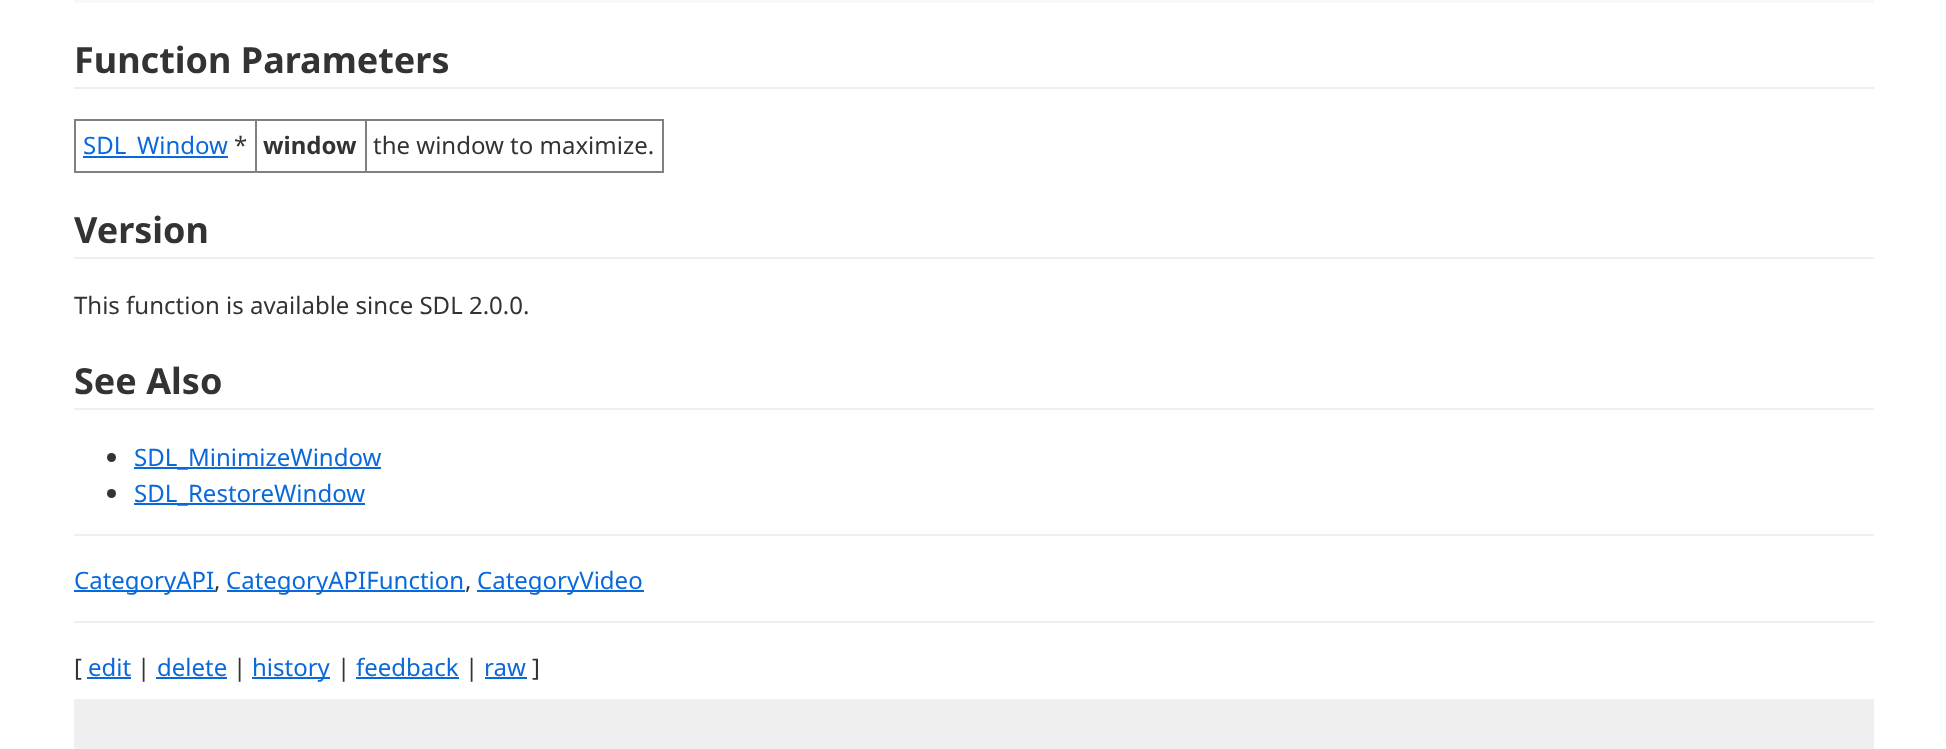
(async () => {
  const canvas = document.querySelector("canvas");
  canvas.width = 1946;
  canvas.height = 749;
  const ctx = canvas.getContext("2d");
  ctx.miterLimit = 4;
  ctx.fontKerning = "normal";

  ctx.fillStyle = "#ffffff";
  ctx.fillRect(0, 0, 1946, 749);
  for (const [x, y, w, h, color] of [
    [74, 0, 1800, 3, "#f6f8fa"],
    [74, 87, 1800, 2, "#efefef"],
    [74, 119, 589, 2, "#808080"],
    [662, 119, 2, 54, "#808080"],
    [74, 171, 589, 2, "#808080"],
    [74, 119, 2, 54, "#808080"],
    [83, 156, 145, 2, "#0969da"],
    [255, 119, 2, 54, "#808080"],
    [365, 119, 2, 54, "#808080"],
    [74, 257, 1800, 2, "#efefef"],
    [74, 408, 1800, 2, "#efefef"],
  ]) {
    ctx.fillStyle = color;
    ctx.fillRect(x, y, w, h);
  }
  ctx.fillStyle = "#333333";
  ctx.beginPath();
  ctx.arc(111.5, 457.5, 4.5, 0, Math.PI * 2);
  ctx.fill();
  ctx.fillStyle = "#0969da";
  ctx.fillRect(134, 467, 247, 2);
  ctx.fillStyle = "#333333";
  ctx.beginPath();
  ctx.arc(111.5, 493.5, 4.5, 0, Math.PI * 2);
  ctx.fill();
  for (const [x, y, w, h, color] of [
    [134, 503, 231, 2, "#0969da"],
    [74, 534, 1800, 2, "#efefef"],
    [74, 590, 141, 2, "#0969da"],
    [227, 590, 238, 2, "#0969da"],
    [477, 590, 167, 2, "#0969da"],
    [74, 621, 1800, 2, "#efefef"],
    [87, 677, 44, 2, "#0969da"],
    [156, 677, 71, 2, "#0969da"],
    [252, 677, 78, 2, "#0969da"],
    [356, 677, 103, 2, "#0969da"],
    [485, 677, 42, 2, "#0969da"],
    [74, 699, 1800, 50, "#efefef"],
  ]) {
    ctx.fillStyle = color;
    ctx.fillRect(x, y, w, h);
  }
  ctx.font = "bold 36px Noto Sans";
  ctx.fillStyle = "#333333";
  ctx.fillText("Function Parameters", 74, 73);
  ctx.font = "24px Noto Sans";
  ctx.fillStyle = "#0969da";
  ctx.fillText("SDL_Window", 83, 154);
  ctx.fillStyle = "#333333";
  ctx.fillText("*", 234, 154);
  ctx.font = "bold 24px Noto Sans";
  ctx.fillText("window", 263, 154);
  ctx.font = "24px Noto Sans";
  ctx.fillText("the window to maximize.", 373, 154);
  ctx.font = "bold 36px Noto Sans";
  ctx.fillText("Version", 74, 243);
  ctx.font = "24px Noto Sans";
  ctx.fillText("This function is available since SDL 2.0.0.", 74, 314);
  ctx.font = "bold 36px Noto Sans";
  ctx.fillText("See Also", 74, 394);
  ctx.font = "24px Noto Sans";
  ctx.fillStyle = "#0969da";
  for (const [text, x, y] of [
    ["SDL_MinimizeWindow", 134, 466],
    ["SDL_RestoreWindow", 134, 502],
    ["CategoryAPI", 74, 589],
  ]) {
    ctx.fillText(text, x, y);
  }
  ctx.fillStyle = "#333333";
  ctx.fillText(",", 214, 589);
  ctx.fillStyle = "#0969da";
  ctx.fillText("CategoryAPIFunction", 226, 589);
  ctx.fillStyle = "#333333";
  ctx.fillText(",", 465, 589);
  ctx.fillStyle = "#0969da";
  ctx.fillText("CategoryVideo", 477, 589);
  ctx.fillStyle = "#333333";
  ctx.fillText("[", 74, 676);
  ctx.fillStyle = "#0969da";
  ctx.fillText("edit", 88, 676);
  ctx.fillStyle = "#333333";
  ctx.fillText("|", 137, 676);
  ctx.fillStyle = "#0969da";
  ctx.fillText("delete", 157, 676);
  ctx.fillStyle = "#333333";
  ctx.fillText("|", 233, 676);
  ctx.fillStyle = "#0969da";
  ctx.fillText("history", 252, 676);
  ctx.fillStyle = "#333333";
  ctx.fillText("|", 337, 676);
  ctx.fillStyle = "#0969da";
  ctx.fillText("feedback", 356, 676);
  ctx.fillStyle = "#333333";
  ctx.fillText("|", 465, 676);
  ctx.fillStyle = "#0969da";
  ctx.fillText("raw", 484, 676);
  ctx.fillStyle = "#333333";
  ctx.fillText("]", 532, 676);
})();
